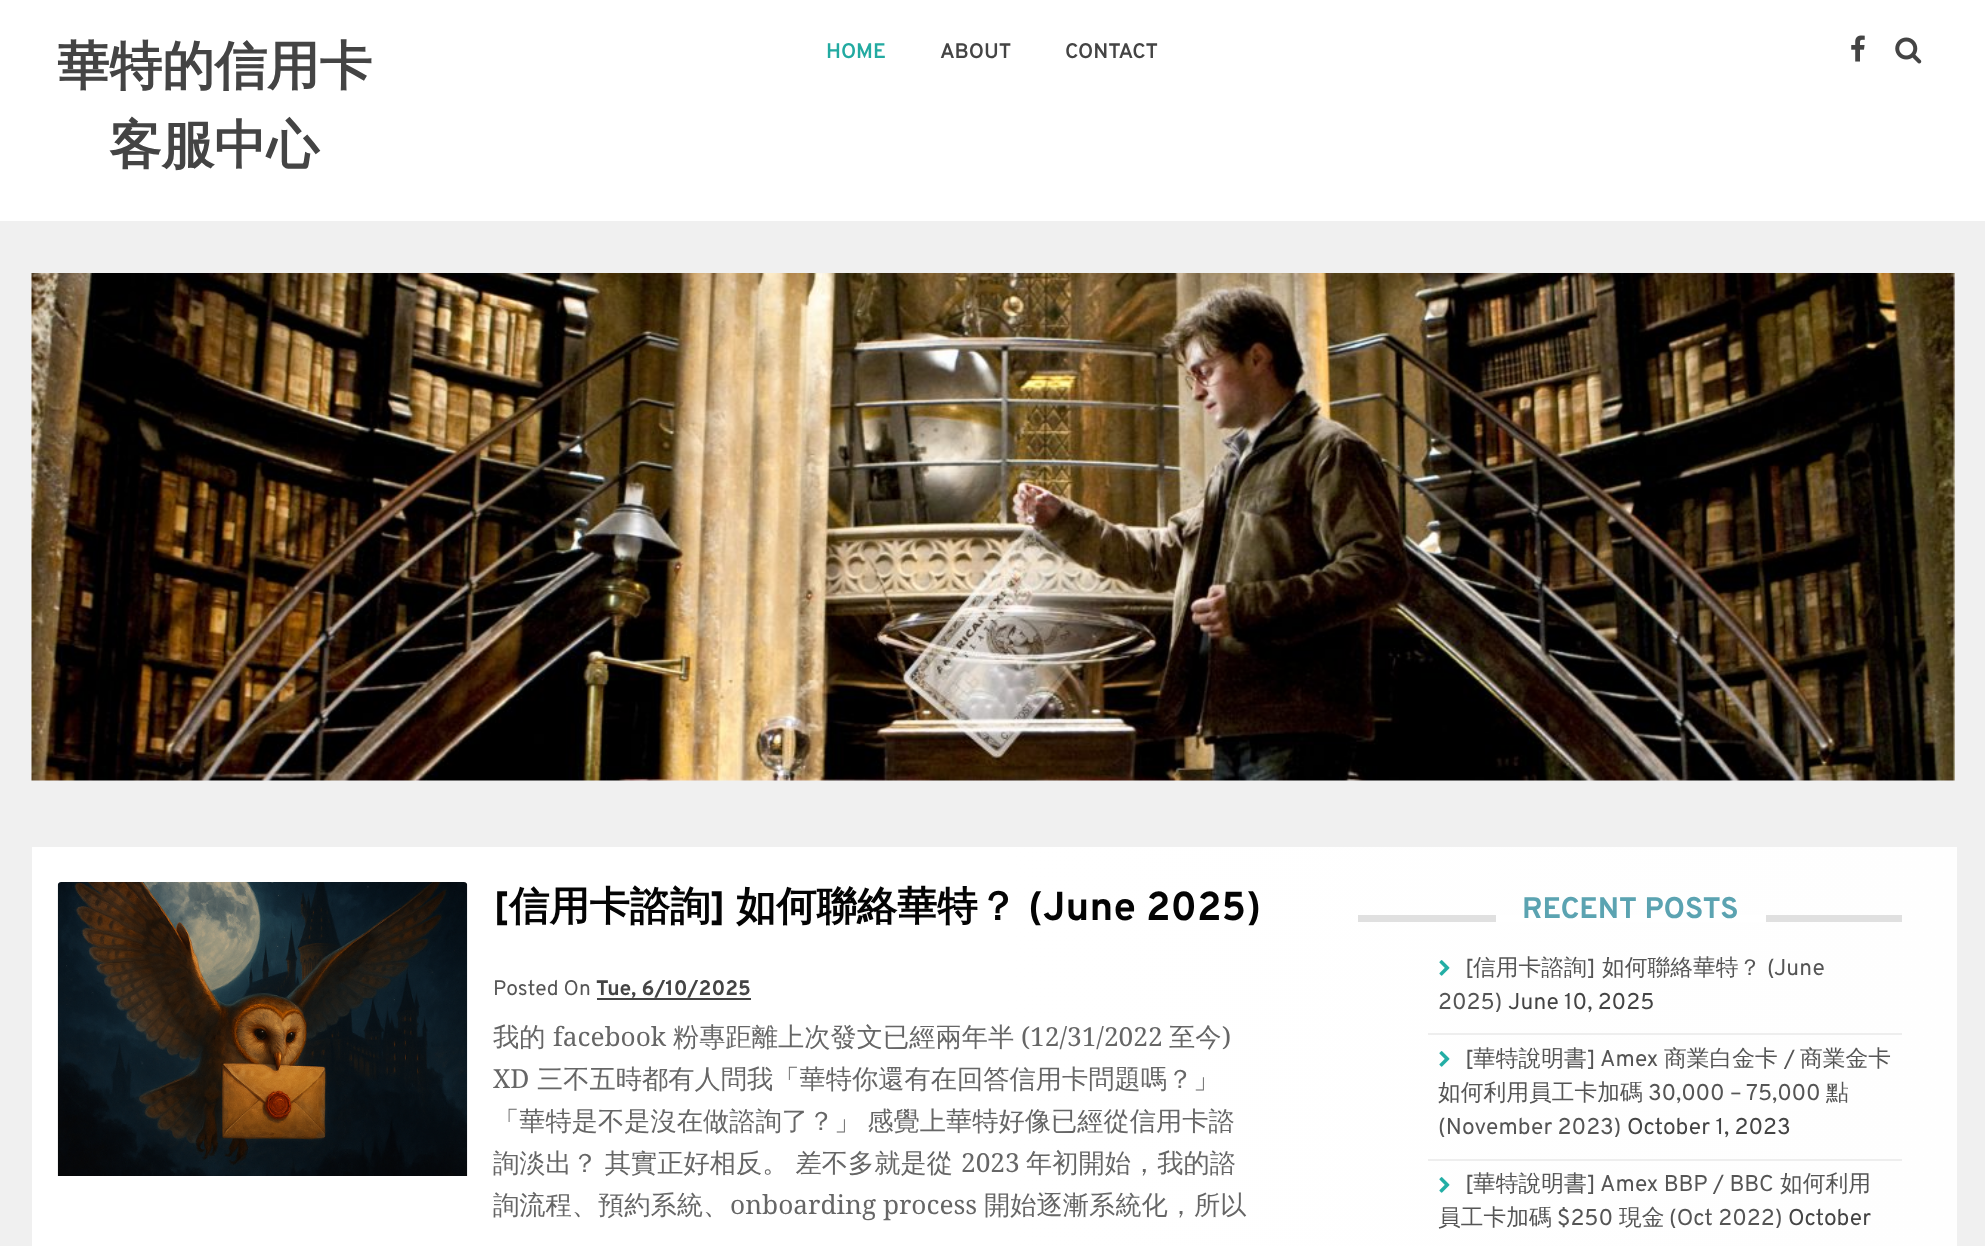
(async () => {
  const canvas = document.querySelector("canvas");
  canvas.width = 1985;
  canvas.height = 1246;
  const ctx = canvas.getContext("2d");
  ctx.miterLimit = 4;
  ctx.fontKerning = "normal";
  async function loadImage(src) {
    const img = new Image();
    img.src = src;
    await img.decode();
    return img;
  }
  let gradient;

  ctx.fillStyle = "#f0f0f0";
  ctx.fillRect(0, 0, 1985, 1246);
  ctx.fillStyle = "#ffffff";
  ctx.fillRect(0, 0, 1985, 221);
  ctx.drawImage(await loadImage("img/1.png"), 1851, 35, 14, 27);
  ctx.drawImage(await loadImage("img/2.png"), 1895, 37, 27, 27);
  ctx.drawImage(await loadImage("img/3.png"), 31, 273, 1924, 508);
  gradient = ctx.createLinearGradient(31, 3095, 1957, 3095);
  gradient.addColorStop(0, "#ffffff");
  gradient.addColorStop(0.5, "#ffffff");
  gradient.addColorStop(1, "#fefefe");
  ctx.fillStyle = gradient;
  ctx.fillRect(32, 847, 1925, 399);
  ctx.drawImage(await loadImage("img/4.png"), 57, 882, 411, 294);
  for (const [x, y, w, h, color] of [
    [597, 998, 154, 2, "#444444"],
    [1358, 915, 544, 7, "#e0e0e0"],
    [1496, 915, 270, 7, "#ffffff"],
    [1428, 1033, 474, 2, "#eeeeee"],
  ]) {
    ctx.fillStyle = color;
    ctx.fillRect(x, y, w, h);
  }
  ctx.drawImage(await loadImage("img/5.png"), 1439, 960, 11, 16);
  ctx.fillRect(1428, 1159, 474, 2);
  ctx.drawImage(await loadImage("img/6.png"), 1439, 1051, 11, 16);
  ctx.drawImage(await loadImage("img/6.png"), 1439, 1177, 11, 16);
  ctx.font = "bold 52.5px WenQuanYi Zen Hei";
  ctx.fillStyle = "#444444";
  ctx.fillText("華特的信用卡", 57, 84);
  ctx.fillText("客服中心", 109, 163);
  ctx.font = "600 21px Overpass";
  ctx.fillStyle = "#22aaa1";
  ctx.fillText("HOME", 826, 58);
  ctx.fillStyle = "#444444";
  ctx.fillText("ABOUT", 940, 58);
  ctx.fillText("CONTACT", 1065, 58);
  ctx.font = "bold 40.25px Overpass";
  ctx.fillStyle = "#040404";
  ctx.fillText("[", 493, 920);
  ctx.font = "bold 40.25px WenQuanYi Zen Hei";
  ctx.fillText("信用卡諮詢", 509, 920);
  ctx.font = "bold 40.25px Overpass";
  ctx.fillText("]", 710, 920);
  ctx.font = "bold 40.25px WenQuanYi Zen Hei";
  ctx.fillText("如何聯絡華特？", 736, 920);
  ctx.font = "bold 40.25px Overpass";
  ctx.fillText("(June 2025)", 1028, 920);
  ctx.font = "21px Overpass";
  ctx.fillStyle = "#555555";
  ctx.fillText("Posted On", 493, 995);
  ctx.font = "bold 21px Overpass";
  ctx.fillStyle = "#444444";
  ctx.fillText("Tue, 6/10/2025", 596, 995);
  ctx.font = "500 26.25px WenQuanYi Zen Hei";
  ctx.fillStyle = "#666666";
  ctx.fillText("我的", 493, 1046);
  ctx.font = "26.25px Noto Serif";
  ctx.fillText("facebook", 553, 1046);
  ctx.font = "500 26.25px WenQuanYi Zen Hei";
  ctx.fillText("粉專距離上次發文已經兩年半", 673, 1046);
  ctx.font = "26.25px Noto Serif";
  ctx.fillText("(12/31/2022", 1021, 1046);
  ctx.font = "500 26.25px WenQuanYi Zen Hei";
  ctx.fillText("至今", 1169, 1046);
  ctx.font = "26.25px Noto Serif";
  ctx.fillText(")", 1222, 1046);
  ctx.fillText("XD", 493, 1088);
  ctx.font = "500 26.25px WenQuanYi Zen Hei";
  ctx.fillText("三不五時都有人問我「華特你還有在回答信用卡問題嗎？」", 537, 1088);
  ctx.wordSpacing = "-1px";
  ctx.fillText("「華特是不是沒在做諮詢了？」 感覺上華特好像已經從信用卡諮", 493, 1130);
  ctx.fillText("詢淡出？ 其實正好相反。 差不多就是從", 493, 1172);
  ctx.wordSpacing = "0px";
  ctx.font = "26.25px Noto Serif";
  ctx.fillText("2023", 961, 1172);
  ctx.font = "500 26.25px WenQuanYi Zen Hei";
  ctx.fillText("年初開始，我的諮", 1026, 1172);
  ctx.fillText("詢流程、預約系統、", 493, 1214);
  ctx.font = "26.25px Noto Serif";
  ctx.fillText("onboarding process", 730, 1214);
  ctx.font = "500 26.25px WenQuanYi Zen Hei";
  ctx.fillText("開始逐漸系統化，所以", 984, 1214);
  ctx.font = "bold 29.75px Overpass";
  ctx.fillStyle = "#5ba3b1";
  ctx.fillText("RECENT POSTS", 1522, 918);
  ctx.font = "22.75px Overpass";
  ctx.fillStyle = "#555555";
  ctx.fillText("[", 1465, 975);
  ctx.font = "500 22.75px WenQuanYi Zen Hei";
  ctx.fillText("信用卡諮詢", 1473, 975);
  ctx.font = "22.75px Overpass";
  ctx.fillText("]", 1587, 975);
  ctx.font = "500 22.75px WenQuanYi Zen Hei";
  ctx.fillText("如何聯絡華特？", 1602, 975);
  ctx.font = "22.75px Overpass";
  ctx.fillText("(June", 1767, 975);
  ctx.fillText("2025)", 1438, 1009);
  ctx.fillStyle = "#444444";
  ctx.fillText("June 10, 2025", 1508, 1009);
  ctx.fillStyle = "#555555";
  ctx.fillText("[", 1465, 1066);
  ctx.font = "500 22.75px WenQuanYi Zen Hei";
  ctx.fillText("華特說明書", 1473, 1066);
  ctx.font = "22.75px Overpass";
  ctx.fillText("] Amex", 1587, 1066);
  ctx.font = "500 22.75px WenQuanYi Zen Hei";
  ctx.fillText("商業白金卡", 1664, 1066);
  ctx.font = "22.75px Overpass";
  ctx.fillText("/", 1784, 1066);
  ctx.font = "500 22.75px WenQuanYi Zen Hei";
  ctx.fillText("商業金卡", 1800, 1066);
  ctx.fillText("如何利用員工卡加碼", 1438, 1100);
  ctx.font = "22.75px Overpass";
  ctx.fillText("30,000 – 75,000", 1648, 1100);
  ctx.font = "500 22.75px WenQuanYi Zen Hei";
  ctx.fillText("點", 1826, 1100);
  ctx.font = "22.75px Overpass";
  ctx.fillText("(November 2023)", 1438, 1134);
  ctx.fillStyle = "#444444";
  ctx.fillText("October 1, 2023", 1627, 1134);
  ctx.fillStyle = "#555555";
  ctx.fillText("[", 1465, 1191);
  ctx.font = "500 22.75px WenQuanYi Zen Hei";
  ctx.fillText("華特說明書", 1473, 1191);
  ctx.font = "22.75px Overpass";
  ctx.fillText("] Amex BBP / BBC", 1587, 1191);
  ctx.font = "500 22.75px WenQuanYi Zen Hei";
  ctx.fillText("如何利用", 1780, 1191);
  ctx.fillText("員工卡加碼", 1438, 1225);
  ctx.font = "22.75px Overpass";
  ctx.fillText("$250", 1557, 1225);
  ctx.font = "500 22.75px WenQuanYi Zen Hei";
  ctx.fillText("現金", 1619, 1225);
  ctx.font = "22.75px Overpass";
  ctx.fillText("(Oct 2022)", 1669, 1225);
  ctx.fillStyle = "#444444";
  ctx.fillText("October", 1788, 1225);
})();
